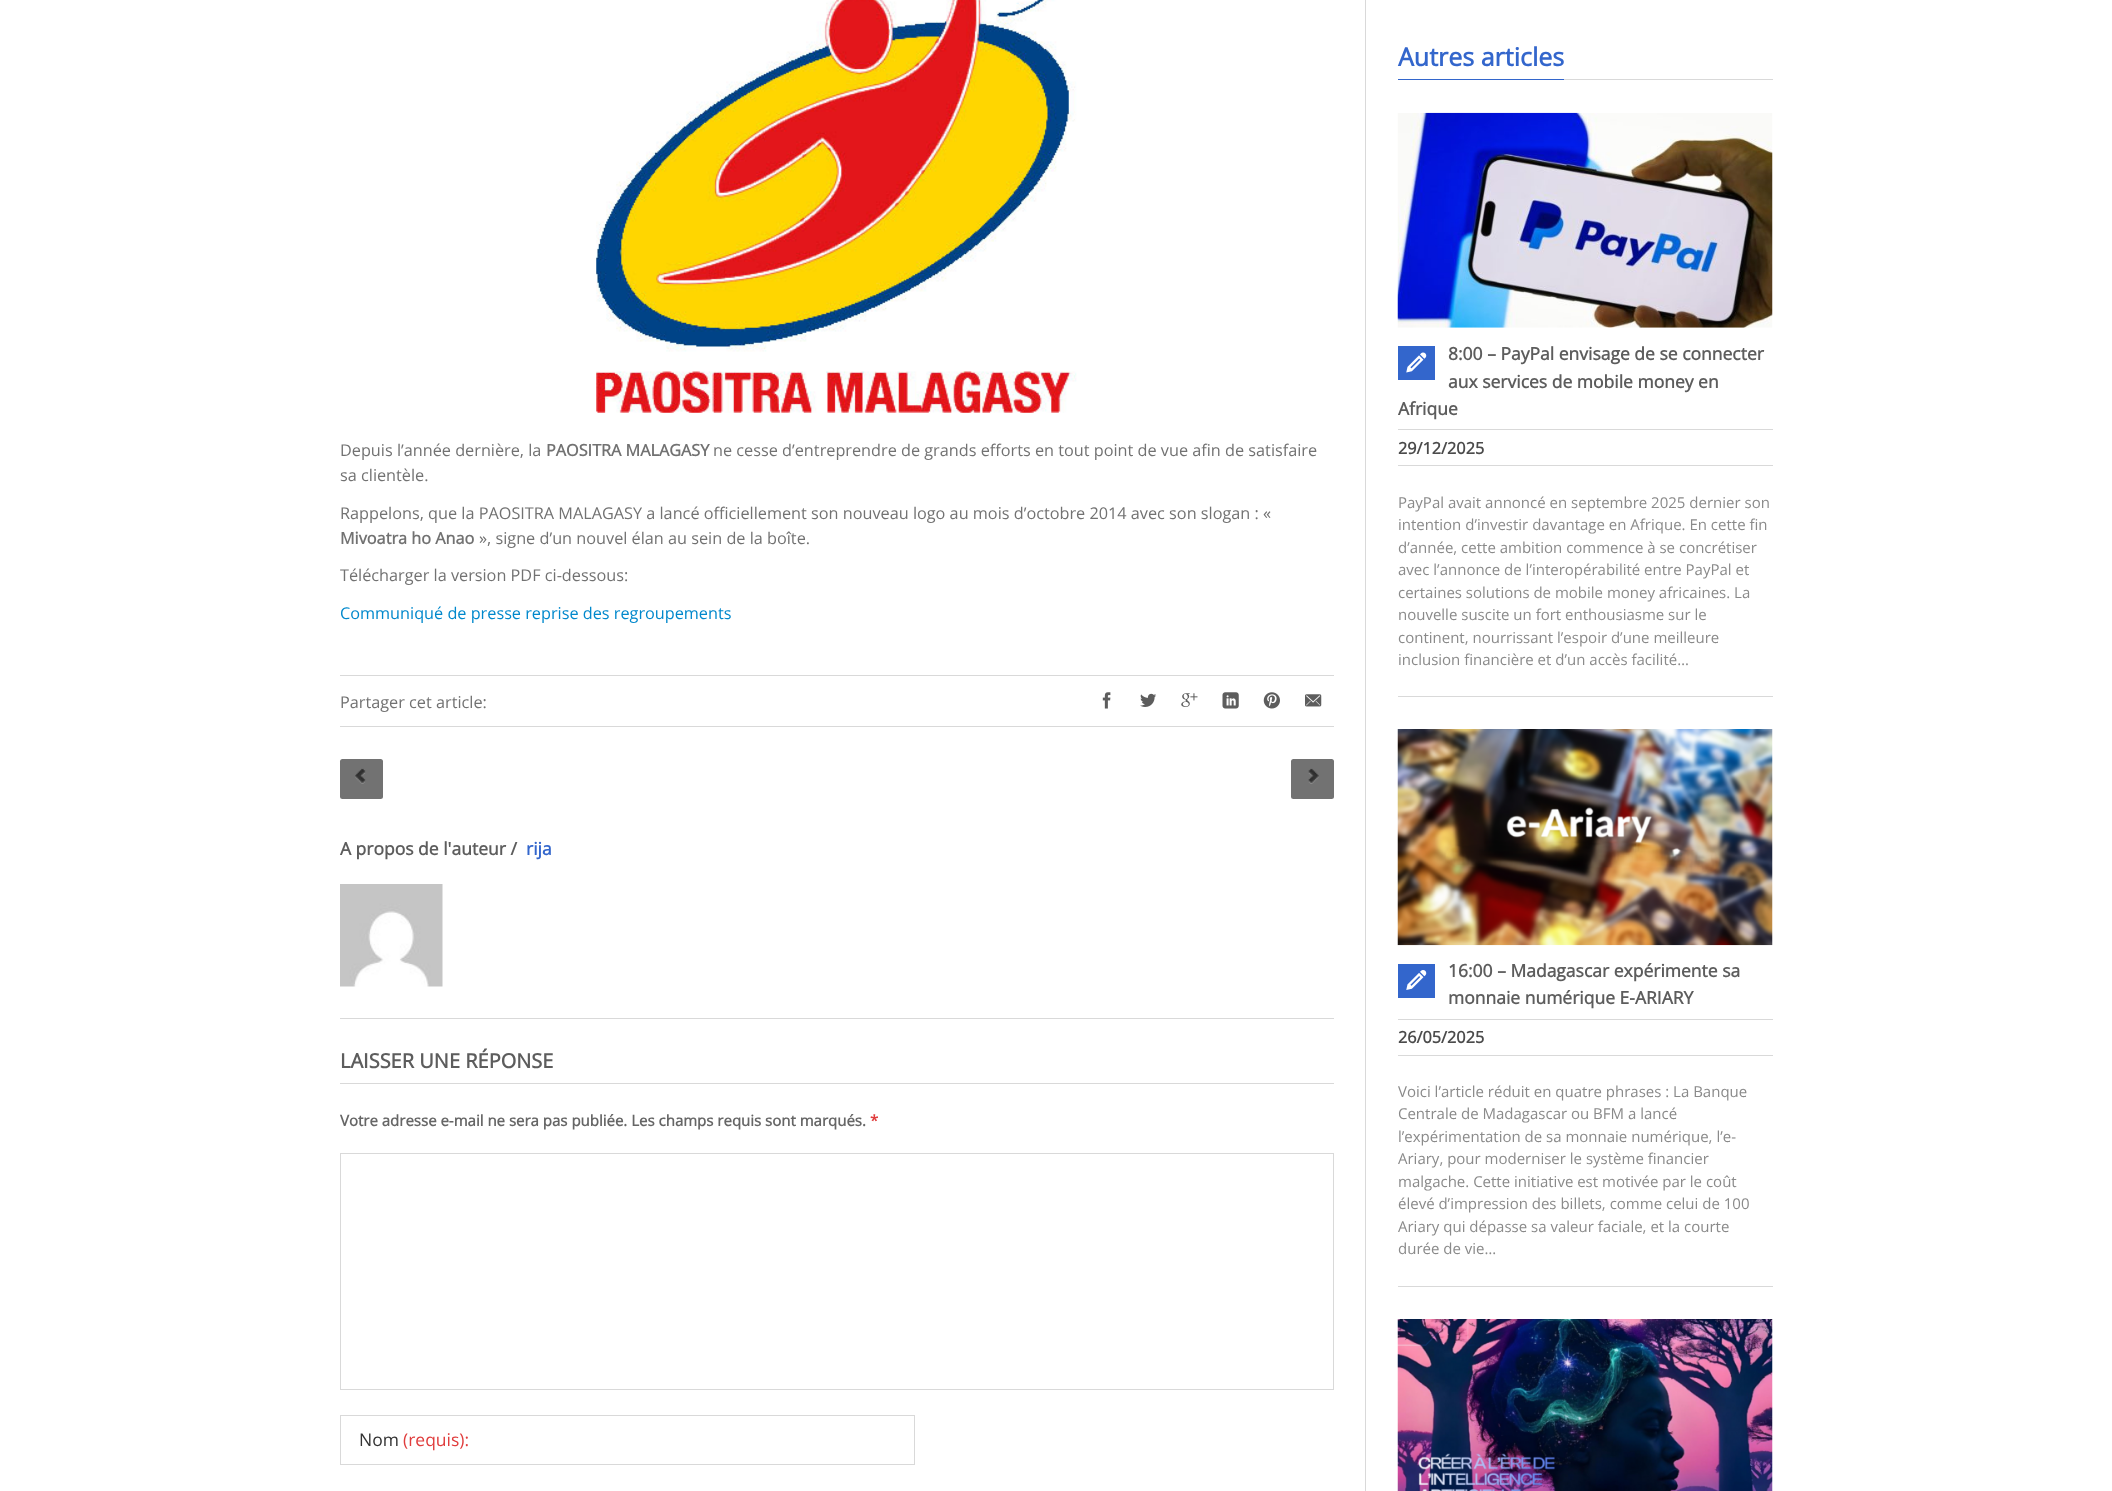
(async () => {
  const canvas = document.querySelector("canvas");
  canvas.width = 2112;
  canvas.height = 1491;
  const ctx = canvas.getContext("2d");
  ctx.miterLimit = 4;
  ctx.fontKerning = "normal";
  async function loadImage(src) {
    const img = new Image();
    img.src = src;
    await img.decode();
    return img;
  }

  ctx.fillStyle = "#ffffff";
  ctx.fillRect(0, 0, 2112, 1491);
  ctx.fillStyle = "#d9d9d9";
  ctx.fillRect(1365, 0, 1, 1491);
  ctx.drawImage(await loadImage("img/1.png"), 596, 0, 481, 413);
  ctx.fillRect(340, 675, 994, 1);
  ctx.fillRect(340, 726, 994, 1);
  ctx.drawImage(await loadImage("img/2.png"), 1102, 692, 9, 17);
  ctx.drawImage(await loadImage("img/3.png"), 1140, 693, 17, 14);
  ctx.drawImage(await loadImage("img/4.png"), 1181, 693, 17, 14);
  ctx.drawImage(await loadImage("img/5.png"), 1222, 692, 17, 17);
  ctx.drawImage(await loadImage("img/6.png"), 1263, 692, 17, 17);
  ctx.drawImage(await loadImage("img/7.png"), 1305, 694, 17, 13);
  ctx.fillStyle = "#727272";
  ctx.beginPath();
  ctx.roundRect(340, 759, 43, 40, 2.5);
  ctx.fill();
  ctx.drawImage(await loadImage("img/8.png"), 355, 768, 11, 16);
  ctx.beginPath();
  ctx.roundRect(1291, 759, 43, 40, 2.5);
  ctx.fill();
  ctx.drawImage(await loadImage("img/9.png"), 1308, 768, 11, 16);
  ctx.fillStyle = "#d9d9d9";
  ctx.fillRect(340, 1018, 994, 1);
  ctx.drawImage(await loadImage("img/10.png"), 340, 884, 103, 103);
  ctx.fillRect(340, 1083, 994, 1);
  ctx.strokeStyle = "#d9d9d9";
  ctx.strokeRect(340.5, 1153.5, 993, 236);
  ctx.strokeRect(340.5, 1415.5, 574, 49);
  ctx.fillRect(1564, 79, 209, 1);
  ctx.fillStyle = "#3366cc";
  ctx.fillRect(1398, 79, 166, 1);
  ctx.drawImage(await loadImage("img/11.png"), 1397, 112, 376, 216);
  ctx.fillRect(1398, 346, 37, 34);
  ctx.drawImage(await loadImage("img/12.png"), 1406, 352, 21, 21);
  for (const [x, y, w, h, color] of [
    [1398, 429, 375, 1, "#d9d9d9"],
    [1398, 465, 375, 1, "#d9d9d9"],
    [1398, 696, 375, 1, "#d9d9d9"],
  ]) {
    ctx.fillStyle = color;
    ctx.fillRect(x, y, w, h);
  }
  ctx.drawImage(await loadImage("img/13.png"), 1397, 729, 376, 217);
  ctx.fillStyle = "#3366cc";
  ctx.fillRect(1398, 964, 37, 34);
  ctx.drawImage(await loadImage("img/14.png"), 1406, 970, 21, 20);
  for (const [x, y, w, h, color] of [
    [1398, 1019, 375, 1, "#d9d9d9"],
    [1398, 1055, 375, 1, "#d9d9d9"],
    [1398, 1286, 375, 1, "#d9d9d9"],
  ]) {
    ctx.fillStyle = color;
    ctx.fillRect(x, y, w, h);
  }
  ctx.drawImage(await loadImage("img/15.png"), 1397, 1319, 376, 172);
  ctx.font = "16.25px Open Sans";
  ctx.fillStyle = "#727272";
  ctx.fillText("Depuis l’année dernière, la", 340, 456);
  ctx.font = "bold 16.25px Open Sans";
  ctx.fillText("PAOSITRA MALAGASY", 546, 456);
  ctx.font = "16.25px Open Sans";
  for (const [text, x, y] of [
    ["ne cesse d’entreprendre de grands efforts en tout point de vue afin de satisfaire", 713, 456],
    ["sa clientèle.", 340, 481],
    ["Rappelons, que la PAOSITRA MALAGASY a lancé officiellement son nouveau logo au mois d’octobre 2014 avec son slogan : «", 340, 519],
  ]) {
    ctx.fillText(text, x, y);
  }
  ctx.font = "bold 16.25px Open Sans";
  ctx.fillText("Mivoatra ho Anao", 340, 544);
  ctx.font = "16.25px Open Sans";
  ctx.fillText("», signe d’un nouvel élan au sein de la boîte.", 479, 544);
  ctx.fillText("Télécharger la version PDF ci-dessous:", 340, 581);
  ctx.fillStyle = "#0088cc";
  ctx.fillText("Communiqué de presse reprise des regroupements", 340, 619);
  ctx.fillStyle = "#727272";
  ctx.fillText("Partager cet article:", 340, 708);
  ctx.font = "bold 17.5px Open Sans";
  ctx.fillStyle = "#5d5d5d";
  ctx.fillText("A propos de l'auteur /", 340, 855);
  ctx.fillStyle = "#3366cc";
  ctx.fillText("rija", 526, 855);
  ctx.font = "bold 20px Open Sans";
  ctx.fillStyle = "#5d5d5d";
  ctx.fillText("LAISSER UNE RÉPONSE", 340, 1068);
  ctx.font = "bold 15px Open Sans";
  ctx.fillStyle = "#666666";
  ctx.fillText("Votre adresse e-mail ne sera pas publiée. Les champs requis sont marqués.", 340, 1126);
  ctx.fillStyle = "#e03d3d";
  ctx.fillText("*", 870, 1126);
  ctx.font = "17.5px Open Sans";
  ctx.fillStyle = "#333333";
  ctx.fillText("Nom", 359, 1446);
  ctx.fillStyle = "#e03d3d";
  ctx.fillText("(requis):", 403, 1446);
  ctx.font = "bold 25px Open Sans";
  ctx.fillStyle = "#3366cc";
  ctx.fillText("Autres articles", 1398, 66);
  ctx.font = "bold 17.5px Open Sans";
  ctx.fillStyle = "#5d5d5d";
  for (const [text, x, y] of [
    ["8:00 – PayPal envisage de se connecter", 1448, 360],
    ["aux services de mobile money en", 1448, 388],
    ["Afrique", 1398, 415],
  ]) {
    ctx.fillText(text, x, y);
  }
  ctx.font = "bold 16.25px Open Sans";
  ctx.fillStyle = "#4b4b4b";
  ctx.fillText("29/12/2025", 1398, 454);
  ctx.font = "15px Open Sans";
  ctx.fillStyle = "#8a8a8a";
  for (const [text, x, y] of [
    ["PayPal avait annoncé en septembre 2025 dernier son", 1398, 508],
    ["intention d’investir davantage en Afrique. En cette fin", 1398, 530],
    ["d’année, cette ambition commence à se concrétiser", 1398, 553],
    ["avec l’annonce de l’interopérabilité entre PayPal et", 1398, 575],
    ["certaines solutions de mobile money africaines. La", 1398, 598],
    ["nouvelle suscite un fort enthousiasme sur le", 1398, 620],
    ["continent, nourrissant l’espoir d’une meilleure", 1398, 643],
    ["inclusion financière et d’un accès facilité…", 1398, 665],
  ]) {
    ctx.fillText(text, x, y);
  }
  ctx.font = "bold 17.5px Open Sans";
  ctx.fillStyle = "#5d5d5d";
  ctx.fillText("16:00 – Madagascar expérimente sa", 1448, 977);
  ctx.fillText("monnaie numérique E-ARIARY", 1448, 1004);
  ctx.font = "bold 16.25px Open Sans";
  ctx.fillStyle = "#4b4b4b";
  ctx.fillText("26/05/2025", 1398, 1043);
  ctx.font = "15px Open Sans";
  ctx.fillStyle = "#8a8a8a";
  for (const [text, x, y] of [
    ["Voici l’article réduit en quatre phrases : La Banque", 1398, 1097],
    ["Centrale de Madagascar ou BFM a lancé", 1398, 1119],
    ["l’expérimentation de sa monnaie numérique, l’e-", 1398, 1142],
    ["Ariary, pour moderniser le système financier", 1398, 1164],
    ["malgache. Cette initiative est motivée par le coût", 1398, 1187],
    ["élevé d’impression des billets, comme celui de 100", 1398, 1209],
    ["Ariary qui dépasse sa valeur faciale, et la courte", 1398, 1232],
    ["durée de vie…", 1398, 1254],
  ]) {
    ctx.fillText(text, x, y);
  }
})();
